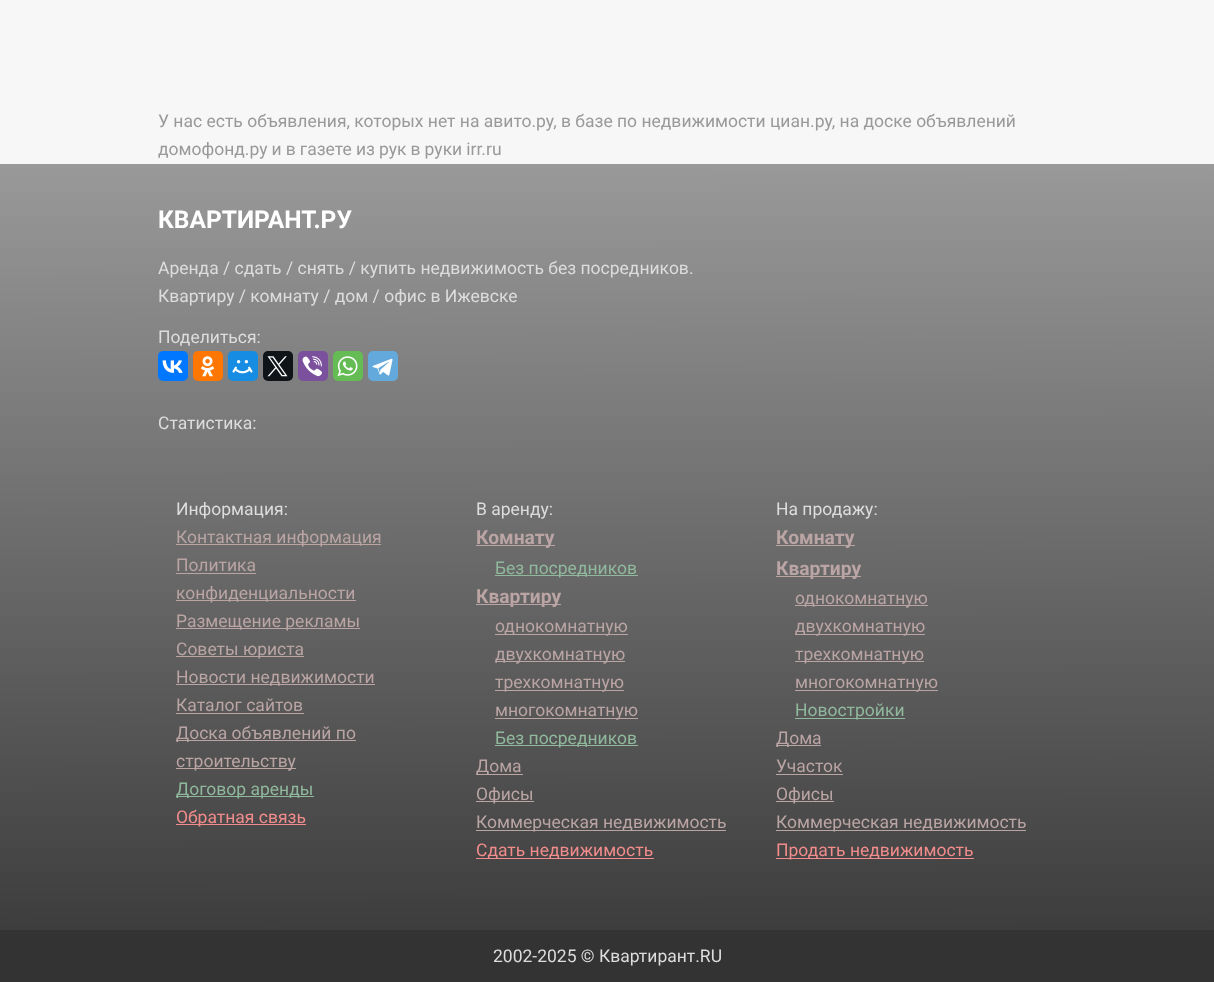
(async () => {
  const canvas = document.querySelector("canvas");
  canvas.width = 1214;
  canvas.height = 982;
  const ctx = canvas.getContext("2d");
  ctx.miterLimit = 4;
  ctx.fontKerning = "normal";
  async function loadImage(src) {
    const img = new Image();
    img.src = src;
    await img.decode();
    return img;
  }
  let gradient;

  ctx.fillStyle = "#f7f7f7";
  ctx.fillRect(0, 0, 1214, 982);
  gradient = ctx.createLinearGradient(607, 164, 608, 930);
  gradient.addColorStop(0, "#999999");
  gradient.addColorStop(1, "#3d3d3d");
  ctx.fillStyle = gradient;
  ctx.fillRect(0, 164, 1214, 766);
  ctx.fillStyle = "#0077ff";
  ctx.beginPath();
  ctx.roundRect(158, 351, 30, 30, 5);
  ctx.fill();
  ctx.drawImage(await loadImage("img/1.png"), 162, 360, 21, 13);
  ctx.fillStyle = "#ff7700";
  ctx.beginPath();
  ctx.roundRect(193, 351, 30, 30, 5);
  ctx.fill();
  ctx.drawImage(await loadImage("img/2.png"), 200, 356, 15, 21);
  ctx.fillStyle = "#168de2";
  ctx.beginPath();
  ctx.roundRect(228, 351, 30, 30, 5);
  ctx.fill();
  ctx.drawImage(await loadImage("img/3.png"), 232, 360, 21, 14);
  ctx.fillStyle = "#0f1419";
  ctx.beginPath();
  ctx.roundRect(263, 351, 30, 30, 5);
  ctx.fill();
  ctx.drawImage(await loadImage("img/4.png"), 267, 356, 21, 21);
  ctx.fillStyle = "#7b519d";
  ctx.beginPath();
  ctx.roundRect(298, 351, 30, 30, 5);
  ctx.fill();
  ctx.drawImage(await loadImage("img/5.png"), 302, 356, 20, 21);
  ctx.fillStyle = "#65bc54";
  ctx.beginPath();
  ctx.roundRect(333, 351, 30, 30, 5);
  ctx.fill();
  ctx.drawImage(await loadImage("img/6.png"), 337, 356, 21, 21);
  ctx.fillStyle = "#64a9dc";
  ctx.beginPath();
  ctx.roundRect(368, 351, 30, 30, 5);
  ctx.fill();
  ctx.drawImage(await loadImage("img/7.png"), 372, 358, 21, 18);
  for (const [x, y, w, h, color] of [
    [176, 544, 205, 1, "#baa4a4"],
    [176, 573, 80, 1, "#baa4a4"],
    [176, 600, 180, 1, "#baa4a4"],
    [176, 628, 184, 1, "#baa4a4"],
    [176, 656, 128, 1, "#baa4a4"],
    [176, 684, 199, 1, "#baa4a4"],
    [176, 713, 128, 1, "#baa4a4"],
    [176, 740, 180, 1, "#baa4a4"],
    [176, 768, 120, 1, "#baa4a4"],
    [176, 796, 138, 1, "#90b89c"],
    [176, 824, 130, 1, "#f28c8c"],
    [476, 545, 79, 1, "#baa4a4"],
    [495, 575, 143, 1, "#90b89c"],
    [476, 604, 85, 1, "#baa4a4"],
    [495, 634, 133, 1, "#baa4a4"],
    [495, 661, 130, 1, "#baa4a4"],
    [495, 690, 129, 1, "#baa4a4"],
    [495, 718, 143, 1, "#baa4a4"],
    [495, 745, 143, 1, "#90b89c"],
    [476, 774, 47, 1, "#baa4a4"],
    [476, 801, 58, 1, "#baa4a4"],
    [476, 830, 250, 1, "#baa4a4"],
    [476, 858, 178, 1, "#f28c8c"],
    [776, 545, 79, 1, "#baa4a4"],
    [776, 576, 85, 1, "#baa4a4"],
    [795, 605, 133, 1, "#baa4a4"],
    [795, 634, 130, 1, "#baa4a4"],
    [795, 661, 129, 1, "#baa4a4"],
    [795, 690, 143, 1, "#baa4a4"],
    [795, 718, 110, 1, "#90b89c"],
    [776, 745, 45, 1, "#baa4a4"],
    [776, 774, 67, 1, "#baa4a4"],
    [776, 801, 58, 1, "#baa4a4"],
    [776, 830, 250, 1, "#baa4a4"],
    [776, 858, 198, 1, "#f28c8c"],
    [0, 930, 1214, 52, "#333333"],
  ]) {
    ctx.fillStyle = color;
    ctx.fillRect(x, y, w, h);
  }
  ctx.font = "17.5px Roboto";
  ctx.fillStyle = "#999999";
  ctx.fillText("У нас есть объявления, которых нет на авито.ру, в базе по недвижимости циан.ру, на доске объявлений", 158, 127);
  ctx.wordSpacing = "-0.25px";
  ctx.fillText("домофонд.ру и в газете из рук в руки irr.ru", 158, 155);
  ctx.wordSpacing = "0px";
  ctx.font = "bold 24.5px Roboto";
  ctx.fillStyle = "#ffffff";
  ctx.fillText("КВАРТИРАНТ.РУ", 158, 228);
  ctx.font = "17.5px Roboto";
  ctx.fillStyle = "#dddddd";
  for (const [text, x, y] of [
    ["Аренда / сдать / снять / купить недвижимость без посредников.", 158, 274],
    ["Квартиру / комнату / дом / офис в Ижевске", 158, 302],
    ["Поделиться:", 158, 343],
    ["Статистика:", 158, 429],
    ["Информация:", 176, 515],
  ]) {
    ctx.fillText(text, x, y);
  }
  ctx.fillStyle = "#baa4a4";
  for (const [text, x, y] of [
    ["Контактная информация", 176, 543],
    ["Политика", 176, 571],
    ["конфиденциальности", 176, 599],
    ["Размещение рекламы", 176, 627],
    ["Советы юриста", 176, 655],
    ["Новости недвижимости", 176, 683],
    ["Каталог сайтов", 176, 711],
    ["Доска объявлений по", 176, 739],
    ["строительству", 176, 767],
  ]) {
    ctx.fillText(text, x, y);
  }
  ctx.fillStyle = "#90b89c";
  ctx.fillText("Договор аренды", 176, 795);
  ctx.fillStyle = "#f28c8c";
  ctx.fillText("Обратная связь", 176, 823);
  ctx.fillStyle = "#dddddd";
  ctx.fillText("В аренду:", 476, 515);
  ctx.font = "bold 19.25px Roboto";
  ctx.fillStyle = "#baa4a4";
  ctx.fillText("Комнату", 476, 544);
  ctx.font = "17.5px Roboto";
  ctx.fillStyle = "#90b89c";
  ctx.fillText("Без посредников", 495, 574);
  ctx.font = "bold 19.25px Roboto";
  ctx.fillStyle = "#baa4a4";
  ctx.fillText("Квартиру", 476, 603);
  ctx.font = "17.5px Roboto";
  for (const [text, x, y] of [
    ["однокомнатную", 495, 632],
    ["двухкомнатную", 495, 660],
    ["трехкомнатную", 495, 688],
    ["многокомнатную", 495, 716],
  ]) {
    ctx.fillText(text, x, y);
  }
  ctx.fillStyle = "#90b89c";
  ctx.fillText("Без посредников", 495, 744);
  ctx.fillStyle = "#baa4a4";
  for (const [text, x, y] of [
    ["Дома", 476, 772],
    ["Офисы", 476, 800],
    ["Коммерческая недвижимость", 476, 828],
  ]) {
    ctx.fillText(text, x, y);
  }
  ctx.fillStyle = "#f28c8c";
  ctx.fillText("Сдать недвижимость", 476, 856);
  ctx.fillStyle = "#dddddd";
  ctx.fillText("На продажу:", 776, 515);
  ctx.font = "bold 19.25px Roboto";
  ctx.fillStyle = "#baa4a4";
  ctx.fillText("Комнату", 776, 544);
  ctx.fillText("Квартиру", 776, 575);
  ctx.font = "17.5px Roboto";
  for (const [text, x, y] of [
    ["однокомнатную", 795, 604],
    ["двухкомнатную", 795, 632],
    ["трехкомнатную", 795, 660],
    ["многокомнатную", 795, 688],
  ]) {
    ctx.fillText(text, x, y);
  }
  ctx.fillStyle = "#90b89c";
  ctx.fillText("Новостройки", 795, 716);
  ctx.fillStyle = "#baa4a4";
  for (const [text, x, y] of [
    ["Дома", 776, 744],
    ["Участок", 776, 772],
    ["Офисы", 776, 800],
    ["Коммерческая недвижимость", 776, 828],
  ]) {
    ctx.fillText(text, x, y);
  }
  ctx.fillStyle = "#f28c8c";
  ctx.fillText("Продать недвижимость", 776, 856);
  ctx.fillStyle = "#dddddd";
  ctx.fillText("2002-2025 © Квартирант.RU", 493, 962);
})();
